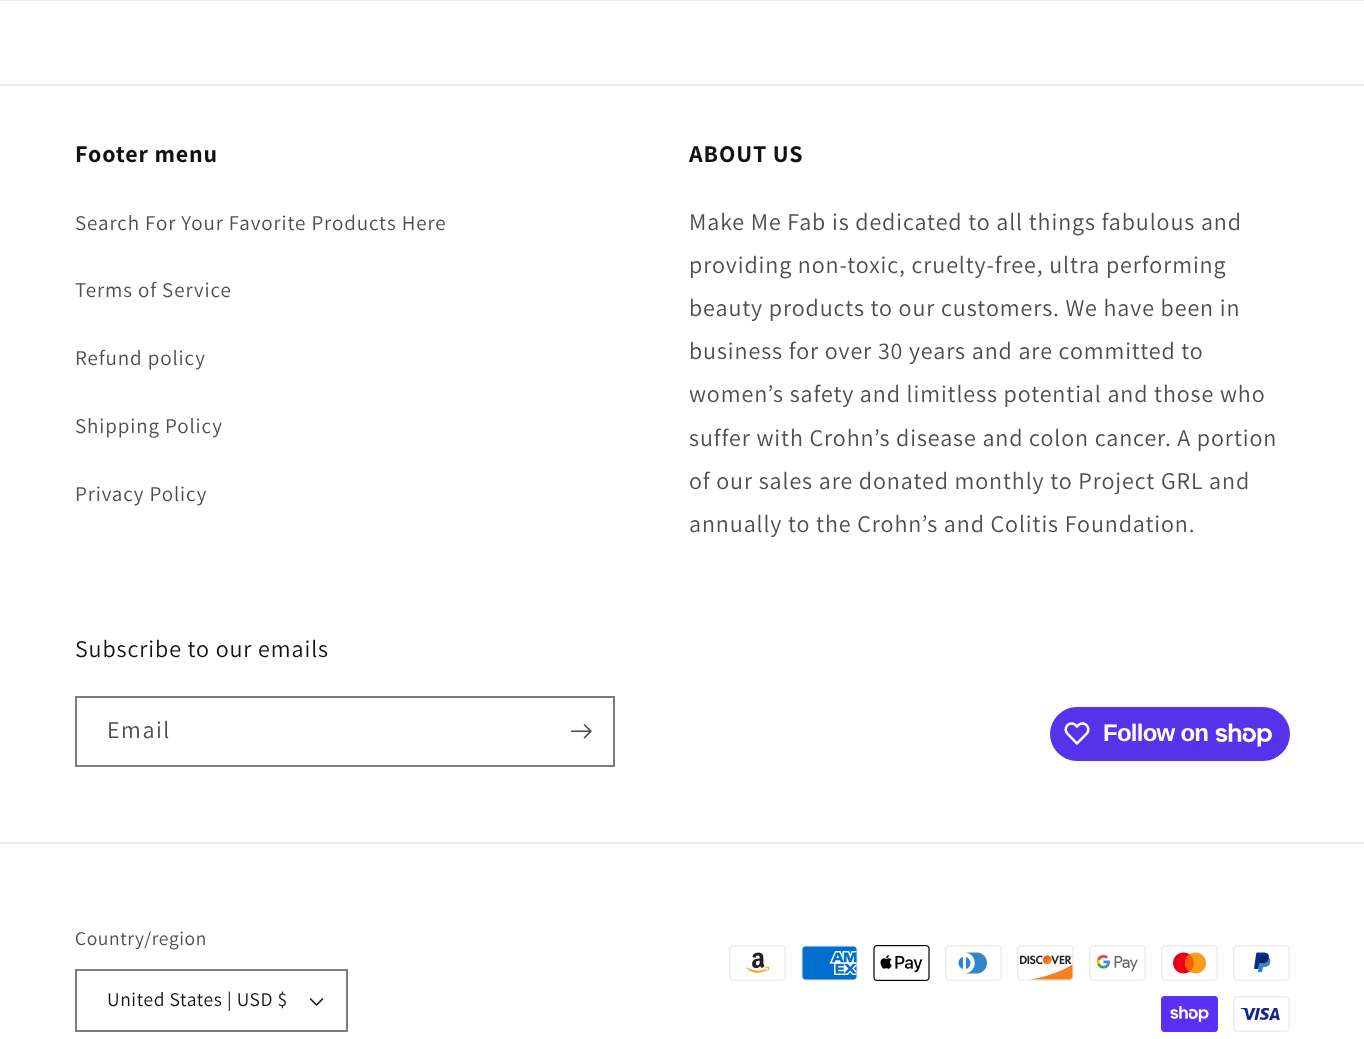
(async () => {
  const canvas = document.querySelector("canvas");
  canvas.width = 1364;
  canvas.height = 1039;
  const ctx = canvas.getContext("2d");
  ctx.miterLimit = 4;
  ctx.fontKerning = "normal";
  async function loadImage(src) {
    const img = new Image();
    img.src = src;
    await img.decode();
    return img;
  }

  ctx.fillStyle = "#ffffff";
  ctx.fillRect(0, 0, 1364, 1039);
  ctx.fillStyle = "#ececec";
  ctx.fillRect(0, 0, 1364, 1);
  ctx.fillRect(0, 84, 1364, 2);
  ctx.strokeStyle = "#7d7d7d";
  ctx.lineWidth = 2;
  ctx.strokeRect(76, 697, 538, 69);
  ctx.drawImage(await loadImage("img/1.png"), 570, 724, 22, 15);
  ctx.fillStyle = "#5433eb";
  ctx.beginPath();
  ctx.roundRect(1050, 707, 240, 54, 27);
  ctx.fill();
  ctx.drawImage(await loadImage("img/2.png"), 1064, 722, 26, 23);
  ctx.drawImage(await loadImage("img/3.png"), 1215, 723, 57, 24);
  ctx.fillStyle = "#ececec";
  ctx.fillRect(0, 842, 1364, 2);
  ctx.drawImage(await loadImage("img/4.png"), 309, 998, 15, 8);
  ctx.strokeRect(76, 970, 271, 61);
  ctx.drawImage(await loadImage("img/5.png"), 729, 945, 57, 36);
  ctx.drawImage(await loadImage("img/6.png"), 801, 945, 57, 36);
  ctx.drawImage(await loadImage("img/7.png"), 873, 945, 57, 36);
  ctx.drawImage(await loadImage("img/8.png"), 945, 945, 57, 36);
  ctx.drawImage(await loadImage("img/9.png"), 1017, 945, 57, 36);
  ctx.drawImage(await loadImage("img/10.png"), 1089, 945, 57, 36);
  ctx.drawImage(await loadImage("img/11.png"), 1161, 945, 57, 36);
  ctx.drawImage(await loadImage("img/12.png"), 1233, 945, 57, 36);
  ctx.drawImage(await loadImage("img/13.png"), 1161, 996, 57, 36);
  ctx.drawImage(await loadImage("img/14.png"), 1233, 996, 57, 36);
  ctx.letterSpacing = "0.9px";
  ctx.font = "bold 24px Assistant";
  ctx.fillStyle = "#121212";
  ctx.fillText("Footer menu", 75, 162);
  ctx.font = "21px Assistant";
  ctx.fillStyle = "#4d4d4d";
  for (const [text, x, y] of [
    ["Search For Your Favorite Products Here", 75, 230],
    ["Terms of Service", 75, 297],
    ["Refund policy", 75, 365],
    ["Shipping Policy", 75, 433],
    ["Privacy Policy", 75, 501],
  ]) {
    ctx.fillText(text, x, y);
  }
  ctx.font = "bold 24px Assistant";
  ctx.fillStyle = "#121212";
  ctx.fillText("ABOUT US", 689, 162);
  ctx.font = "24px Assistant";
  ctx.fillStyle = "#4d4d4d";
  for (const [text, x, y] of [
    ["Make Me Fab is dedicated to all things fabulous and", 689, 230],
    ["providing non-toxic, cruelty-free, ultra performing", 689, 273],
    ["beauty products to our customers. We have been in", 689, 316],
    ["business for over 30 years and are committed to", 689, 359],
    ["women’s safety and limitless potential and those who", 689, 402],
    ["suffer with Crohn’s disease and colon cancer. A portion", 689, 446],
    ["of our sales are donated monthly to Project GRL and", 689, 489],
    ["annually to the Crohn’s and Colitis Foundation.", 689, 532],
  ]) {
    ctx.fillText(text, x, y);
  }
  ctx.fillStyle = "#121212";
  ctx.fillText("Subscribe to our emails", 75, 657);
  ctx.letterSpacing = "1.5px";
  ctx.fillStyle = "#4d4d4d";
  ctx.fillText("Email", 107, 738);
  ctx.letterSpacing = "-0.75px";
  ctx.font = "bold 24px Liberation Sans";
  ctx.fillStyle = "#ffffff";
  ctx.fillText("Follow on", 1103, 741);
  ctx.letterSpacing = "0.6px";
  ctx.font = "19.5px Assistant";
  ctx.fillStyle = "#4d4d4d";
  ctx.fillText("Country/region", 75, 945);
  ctx.fillStyle = "#121212";
  ctx.fillText("United States | USD $", 107, 1006);
})();
